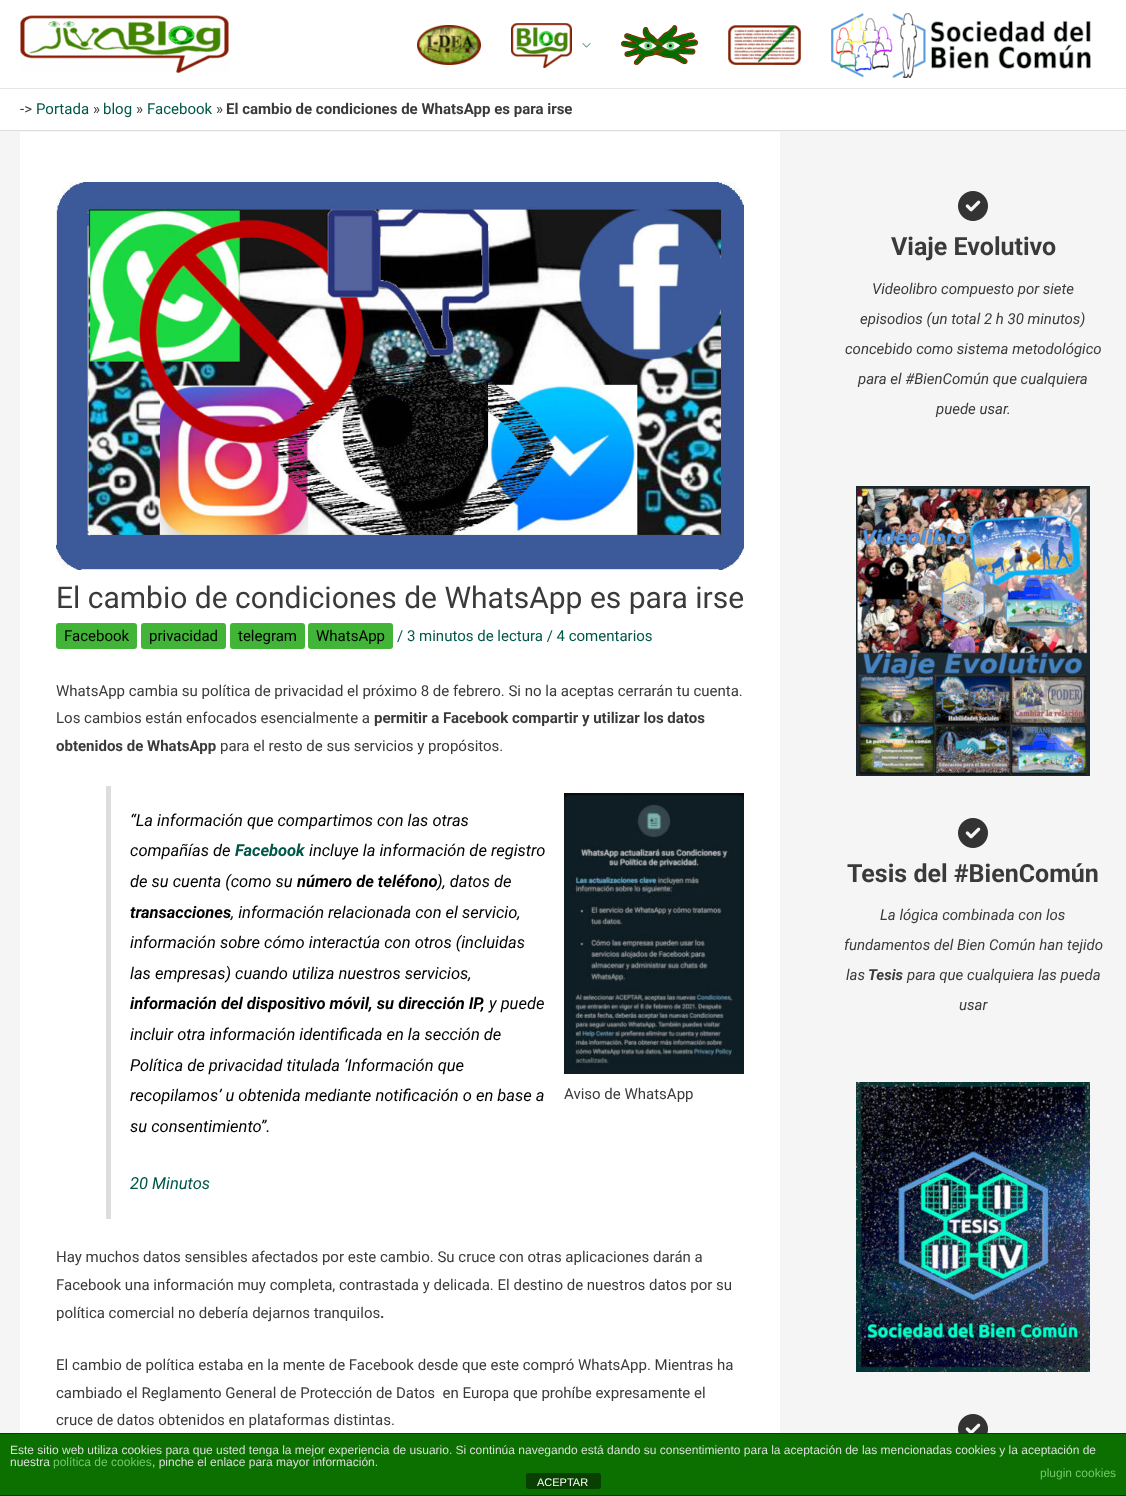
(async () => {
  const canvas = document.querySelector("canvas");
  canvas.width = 1126;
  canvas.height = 1496;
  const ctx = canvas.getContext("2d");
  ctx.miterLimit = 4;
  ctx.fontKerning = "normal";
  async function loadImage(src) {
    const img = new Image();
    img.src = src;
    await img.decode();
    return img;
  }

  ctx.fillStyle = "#f5f5f5";
  ctx.fillRect(0, 0, 1126, 1496);
  ctx.fillStyle = "#ffffff";
  ctx.fillRect(0, 0, 1126, 88);
  ctx.fillStyle = "#e5e5e5";
  ctx.fillRect(0, 88, 1126, 1);
  ctx.drawImage(await loadImage("img/1.png"), 20, 15, 209, 58);
  ctx.drawImage(await loadImage("img/2.png"), 417, 25, 64, 40);
  ctx.drawImage(await loadImage("img/3.png"), 511, 23, 61, 45);
  ctx.drawImage(await loadImage("img/4.png"), 582, 43, 9, 5);
  ctx.drawImage(await loadImage("img/5.png"), 621, 25, 77, 40);
  ctx.drawImage(await loadImage("img/6.png"), 728, 25, 73, 40);
  ctx.drawImage(await loadImage("img/7.png"), 831, 13, 260, 65);
  for (const [x, y, w, h, color] of [
    [0, 89, 1126, 41, "#ffffff"],
    [0, 130, 1126, 1, "#dddddd"],
    [20, 132, 760, 1301, "#ffffff"],
  ]) {
    ctx.fillStyle = color;
    ctx.fillRect(x, y, w, h);
  }
  ctx.drawImage(await loadImage("img/8.png"), 56, 182, 688, 388);
  ctx.fillStyle = "#42b538";
  ctx.beginPath();
  ctx.roundRect(56, 623, 81, 26, 3);
  ctx.fill();
  ctx.beginPath();
  ctx.roundRect(141, 623, 85, 26, 3);
  ctx.fill();
  ctx.beginPath();
  ctx.roundRect(230, 623, 75, 26, 3);
  ctx.fill();
  ctx.beginPath();
  ctx.roundRect(308, 623, 85, 26, 3);
  ctx.fill();
  ctx.fillStyle = "#dddddd";
  ctx.fillRect(106, 786, 5, 433);
  ctx.drawImage(await loadImage("img/9.png"), 564, 793, 180, 281);
  ctx.drawImage(await loadImage("img/10.png"), 958, 191, 30, 30);
  ctx.drawImage(await loadImage("img/11.png"), 856, 486, 234, 290);
  ctx.drawImage(await loadImage("img/10.png"), 958, 818, 30, 30);
  ctx.drawImage(await loadImage("img/12.png"), 856, 1082, 234, 290);
  ctx.drawImage(await loadImage("img/13.png"), 958, 1414, 30, 19);
  for (const [x, y, w, h, color] of [
    [0, 1434, 1126, 61, "#0b7000"],
    [0, 1433, 1126, 1, "#064000"],
    [0, 1495, 1126, 1, "#064000"],
  ]) {
    ctx.fillStyle = color;
    ctx.fillRect(x, y, w, h);
  }
  ctx.fillStyle = "#074000";
  ctx.beginPath();
  ctx.roundRect(526, 1473, 75, 16, 3);
  ctx.fill();
  ctx.font = "15px Roboto";
  ctx.fillStyle = "#3a3a3a";
  ctx.fillText("->", 20, 114);
  ctx.fillStyle = "#005649";
  ctx.fillText("Portada", 36, 114);
  ctx.fillStyle = "#3a3a3a";
  ctx.fillText("»", 93, 114);
  ctx.fillStyle = "#005649";
  ctx.fillText("blog", 103, 114);
  ctx.fillStyle = "#3a3a3a";
  ctx.fillText("»", 136, 114);
  ctx.fillStyle = "#005649";
  ctx.fillText("Facebook", 147, 114);
  ctx.fillStyle = "#3a3a3a";
  ctx.fillText("»", 216, 114);
  ctx.font = "bold 15px Roboto";
  ctx.fillText("El cambio de condiciones de WhatsApp es para irse", 226, 114);
  ctx.font = "30px Roboto";
  ctx.fillText("El cambio de condiciones de WhatsApp es para irse", 56, 608);
  ctx.font = "15px Roboto";
  ctx.fillStyle = "#000000";
  for (const [text, x, y] of [
    ["Facebook", 64, 641],
    ["privacidad", 149, 641],
    ["telegram", 238, 641],
    ["WhatsApp", 316, 641],
  ]) {
    ctx.fillText(text, x, y);
  }
  ctx.fillStyle = "#005649";
  ctx.fillText("/ 3 minutos de lectura / 4 comentarios", 397, 641);
  ctx.fillStyle = "#3a3a3a";
  ctx.fillText("WhatsApp cambia su política de privacidad el próximo 8 de febrero. Si no la aceptas cerrarán tu cuenta.", 56, 696);
  ctx.fillText("Los cambios están enfocados esencialmente a", 56, 723);
  ctx.font = "bold 15px Roboto";
  ctx.fillText("permitir a Facebook compartir y utilizar los datos", 374, 723);
  ctx.fillText("obtenidos de WhatsApp", 56, 751);
  ctx.font = "15px Roboto";
  ctx.fillText("para el resto de sus servicios y propósitos.", 220, 751);
  ctx.font = "italic 16.5px Roboto";
  ctx.fillStyle = "#000000";
  ctx.fillText("“La información que compartimos con las otras", 130, 826);
  ctx.fillText("compañías de", 130, 856);
  ctx.font = "italic bold 16.5px Roboto";
  ctx.fillStyle = "#005649";
  ctx.fillText("Facebook", 235, 856);
  ctx.font = "italic 16.5px Roboto";
  ctx.fillStyle = "#000000";
  ctx.fillText("incluye la información de registro", 309, 856);
  ctx.fillText("de su cuenta (como su", 130, 887);
  ctx.font = "italic bold 16.5px Roboto";
  ctx.fillText("número de teléfono", 297, 887);
  ctx.font = "italic 16.5px Roboto";
  ctx.fillText("), datos de", 437, 887);
  ctx.font = "italic bold 16.5px Roboto";
  ctx.fillText("transacciones", 130, 918);
  ctx.font = "italic 16.5px Roboto";
  for (const [text, x, y] of [
    [", información relacionada con el servicio,", 231, 918],
    ["información sobre cómo interactúa con otros (incluidas", 130, 948],
    ["las empresas) cuando utiliza nuestros servicios,", 130, 979],
  ]) {
    ctx.fillText(text, x, y);
  }
  ctx.font = "italic bold 16.5px Roboto";
  ctx.fillText("información del dispositivo móvil, su dirección IP,", 130, 1009);
  ctx.font = "italic 16.5px Roboto";
  for (const [text, x, y] of [
    ["y puede", 489, 1009],
    ["incluir otra información identificada en la sección de", 130, 1040],
    ["Política de privacidad titulada ‘Información que", 130, 1071],
    ["recopilamos’ u obtenida mediante notificación o en base a", 130, 1101],
    ["su consentimiento”.", 130, 1132],
  ]) {
    ctx.fillText(text, x, y);
  }
  ctx.fillStyle = "#005649";
  ctx.fillText("20 Minutos", 130, 1189);
  ctx.font = "15px Roboto";
  ctx.fillStyle = "#3a3a3a";
  for (const [text, x, y] of [
    ["Aviso de WhatsApp", 564, 1099],
    ["Hay muchos datos sensibles afectados por este cambio. Su cruce con otras aplicaciones darán a", 56, 1262],
    ["Facebook una información muy completa, contrastada y delicada. El destino de nuestros datos por su", 56, 1290],
    ["política comercial no debería dejarnos tranquilos", 56, 1318],
  ]) {
    ctx.fillText(text, x, y);
  }
  ctx.font = "bold 15px Roboto";
  ctx.fillText(".", 380, 1318);
  ctx.font = "15px Roboto";
  for (const [text, x, y] of [
    ["El cambio de política estaba en la mente de Facebook desde que este compró WhatsApp. Mientras ha", 56, 1370],
    ["cambiado el Reglamento General de Protección de Datos  en Europa que prohíbe expresamente el", 56, 1398],
    ["cruce de datos obtenidos en plataformas distintas.", 56, 1425],
  ]) {
    ctx.fillText(text, x, y);
  }
  ctx.font = "bold 25px Roboto";
  ctx.fillText("Viaje Evolutivo", 891, 255);
  ctx.font = "italic 15px Roboto";
  for (const [text, x, y] of [
    ["Videolibro compuesto por siete", 872, 294],
    ["episodios (un total 2 h 30 minutos)", 860, 324],
    ["concebido como sistema metodológico", 845, 354],
    ["para el #BienComún que cualquiera", 858, 384],
    ["puede usar.", 936, 414],
  ]) {
    ctx.fillText(text, x, y);
  }
  ctx.font = "bold 25px Roboto";
  ctx.fillText("Tesis del #BienComún", 847, 882);
  ctx.font = "italic 15px Roboto";
  for (const [text, x, y] of [
    ["La lógica combinada con los", 880, 920],
    ["fundamentos del Bien Común han tejido", 844, 950],
    ["las", 846, 980],
  ]) {
    ctx.fillText(text, x, y);
  }
  ctx.font = "italic bold 15px Roboto";
  ctx.fillText("Tesis", 868, 980);
  ctx.font = "italic 15px Roboto";
  ctx.fillText("para que cualquiera las pueda", 907, 980);
  ctx.fillText("usar", 959, 1010);
  ctx.font = "12px Liberation Sans";
  ctx.fillStyle = "#dddddd";
  ctx.fillText("Este sitio web utiliza cookies para que usted tenga la mejor experiencia de usuario. Si continúa navegando está dando su consentimiento para la aceptación de las mencionadas cookies y la aceptación de", 10, 1454);
  ctx.fillText("nuestra", 10, 1466);
  ctx.fillStyle = "#75c76c";
  ctx.fillText("política de cookies", 53, 1466);
  ctx.fillStyle = "#dddddd";
  ctx.fillText(", pinche el enlace para mayor información.", 152, 1466);
  ctx.fillStyle = "#75c76c";
  ctx.fillText("plugin cookies", 1040, 1477);
  ctx.font = "11px Liberation Sans";
  ctx.fillStyle = "#ffffff";
  ctx.fillText("ACEPTAR", 537, 1486);
})();
